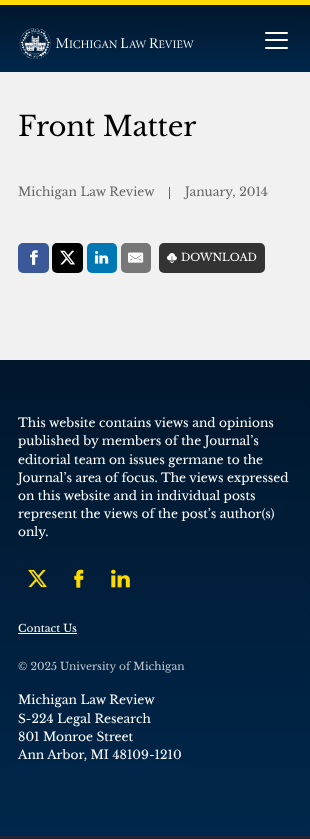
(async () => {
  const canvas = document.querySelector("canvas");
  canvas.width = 310;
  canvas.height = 839;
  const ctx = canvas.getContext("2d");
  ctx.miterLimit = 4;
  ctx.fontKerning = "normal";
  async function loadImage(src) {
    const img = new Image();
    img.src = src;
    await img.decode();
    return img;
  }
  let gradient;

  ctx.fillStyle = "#f1f1f1";
  ctx.fillRect(0, 0, 310, 839);
  gradient = ctx.createLinearGradient(155, 5, 155, 72);
  gradient.addColorStop(0, "#00172c");
  gradient.addColorStop(1, "#00274c");
  ctx.fillStyle = gradient;
  ctx.fillRect(0, 5, 310, 67);
  ctx.fillStyle = "#ffda00";
  ctx.fillRect(0, 0, 310, 5);
  ctx.drawImage(await loadImage("img/1.png"), 19, 28, 175, 31);
  ctx.fillStyle = "#ffffff";
  ctx.beginPath();
  ctx.roundRect(265, 39, 23, 2, 1);
  ctx.fill();
  ctx.beginPath();
  ctx.roundRect(265, 32, 23, 2, 1);
  ctx.fill();
  ctx.beginPath();
  ctx.roundRect(265, 47, 23, 2, 1);
  ctx.fill();
  ctx.fillStyle = "#666666";
  ctx.fillRect(169, 187, 1, 12);
  ctx.fillStyle = "#3b5998";
  ctx.beginPath();
  ctx.roundRect(18, 243, 31, 30, 5);
  ctx.fill();
  ctx.drawImage(await loadImage("img/2.png"), 30, 250, 8, 15);
  ctx.fillStyle = "#000000";
  ctx.beginPath();
  ctx.roundRect(52, 243, 31, 30, 5);
  ctx.fill();
  ctx.drawImage(await loadImage("img/3.png"), 60, 250, 15, 15);
  ctx.fillStyle = "#0077b5";
  ctx.beginPath();
  ctx.roundRect(87, 243, 30, 30, 5);
  ctx.fill();
  ctx.drawImage(await loadImage("img/4.png"), 94, 251, 15, 13);
  ctx.fillStyle = "#777777";
  ctx.beginPath();
  ctx.roundRect(121, 243, 30, 30, 5);
  ctx.fill();
  ctx.drawImage(await loadImage("img/5.png"), 128, 252, 16, 11);
  ctx.fillStyle = "#333333";
  ctx.beginPath();
  ctx.roundRect(159, 243, 106, 30, 5);
  ctx.fill();
  ctx.drawImage(await loadImage("img/6.png"), 167, 253, 10, 10);
  gradient = ctx.createLinearGradient(155, 360, 155, 836);
  gradient.addColorStop(0, "#00172c");
  gradient.addColorStop(1, "#00274c");
  ctx.fillStyle = gradient;
  ctx.fillRect(0, 360, 310, 476);
  ctx.drawImage(await loadImage("img/7.png"), 28, 569, 19, 19);
  ctx.drawImage(await loadImage("img/8.png"), 74, 569, 10, 19);
  ctx.drawImage(await loadImage("img/9.png"), 111, 569, 19, 19);
  ctx.fillStyle = "#ffffff";
  ctx.fillRect(18, 633, 59, 1);
  ctx.fillStyle = "#212737";
  ctx.fillRect(0, 836, 310, 3);
  ctx.letterSpacing = "-0.25px";
  ctx.font = "27.5px Libre Baskerville";
  ctx.fillStyle = "#000000";
  ctx.fillText("Front Matter", 18, 136);
  ctx.letterSpacing = "0px";
  ctx.font = "12.2px Libre Baskerville";
  ctx.fillStyle = "#666666";
  ctx.fillText("Michigan Law Review", 18, 196);
  ctx.fillText("January, 2014", 185, 196);
  ctx.font = "10.6px Libre Baskerville";
  ctx.fillStyle = "#ffffff";
  ctx.fillText("DOWNLOAD", 181, 261);
  ctx.font = "12.2px Libre Baskerville";
  for (const [text, x, y] of [
    ["This website contains views and opinions", 18, 427],
    ["published by members of the Journal’s", 18, 445],
    ["editorial team on issues germane to the", 18, 464],
    ["Journal’s area of focus. The views expressed", 18, 482],
    ["on this website and in individual posts", 18, 500],
    ["represent the views of the post’s author(s)", 18, 518],
    ["only.", 18, 536],
  ]) {
    ctx.fillText(text, x, y);
  }
  ctx.font = "10.6px Libre Baskerville";
  ctx.fillText("Contact Us", 18, 632);
  ctx.fillStyle = "#bfc8cf";
  ctx.fillText("© 2025 University of Michigan", 18, 670);
  ctx.font = "12.2px Libre Baskerville";
  ctx.fillStyle = "#ffffff";
  for (const [text, x, y] of [
    ["Michigan Law Review", 18, 704],
    ["S-224 Legal Research", 18, 723],
    ["801 Monroe Street", 18, 741],
    ["Ann Arbor, MI 48109-1210", 18, 759],
  ]) {
    ctx.fillText(text, x, y);
  }
})();
